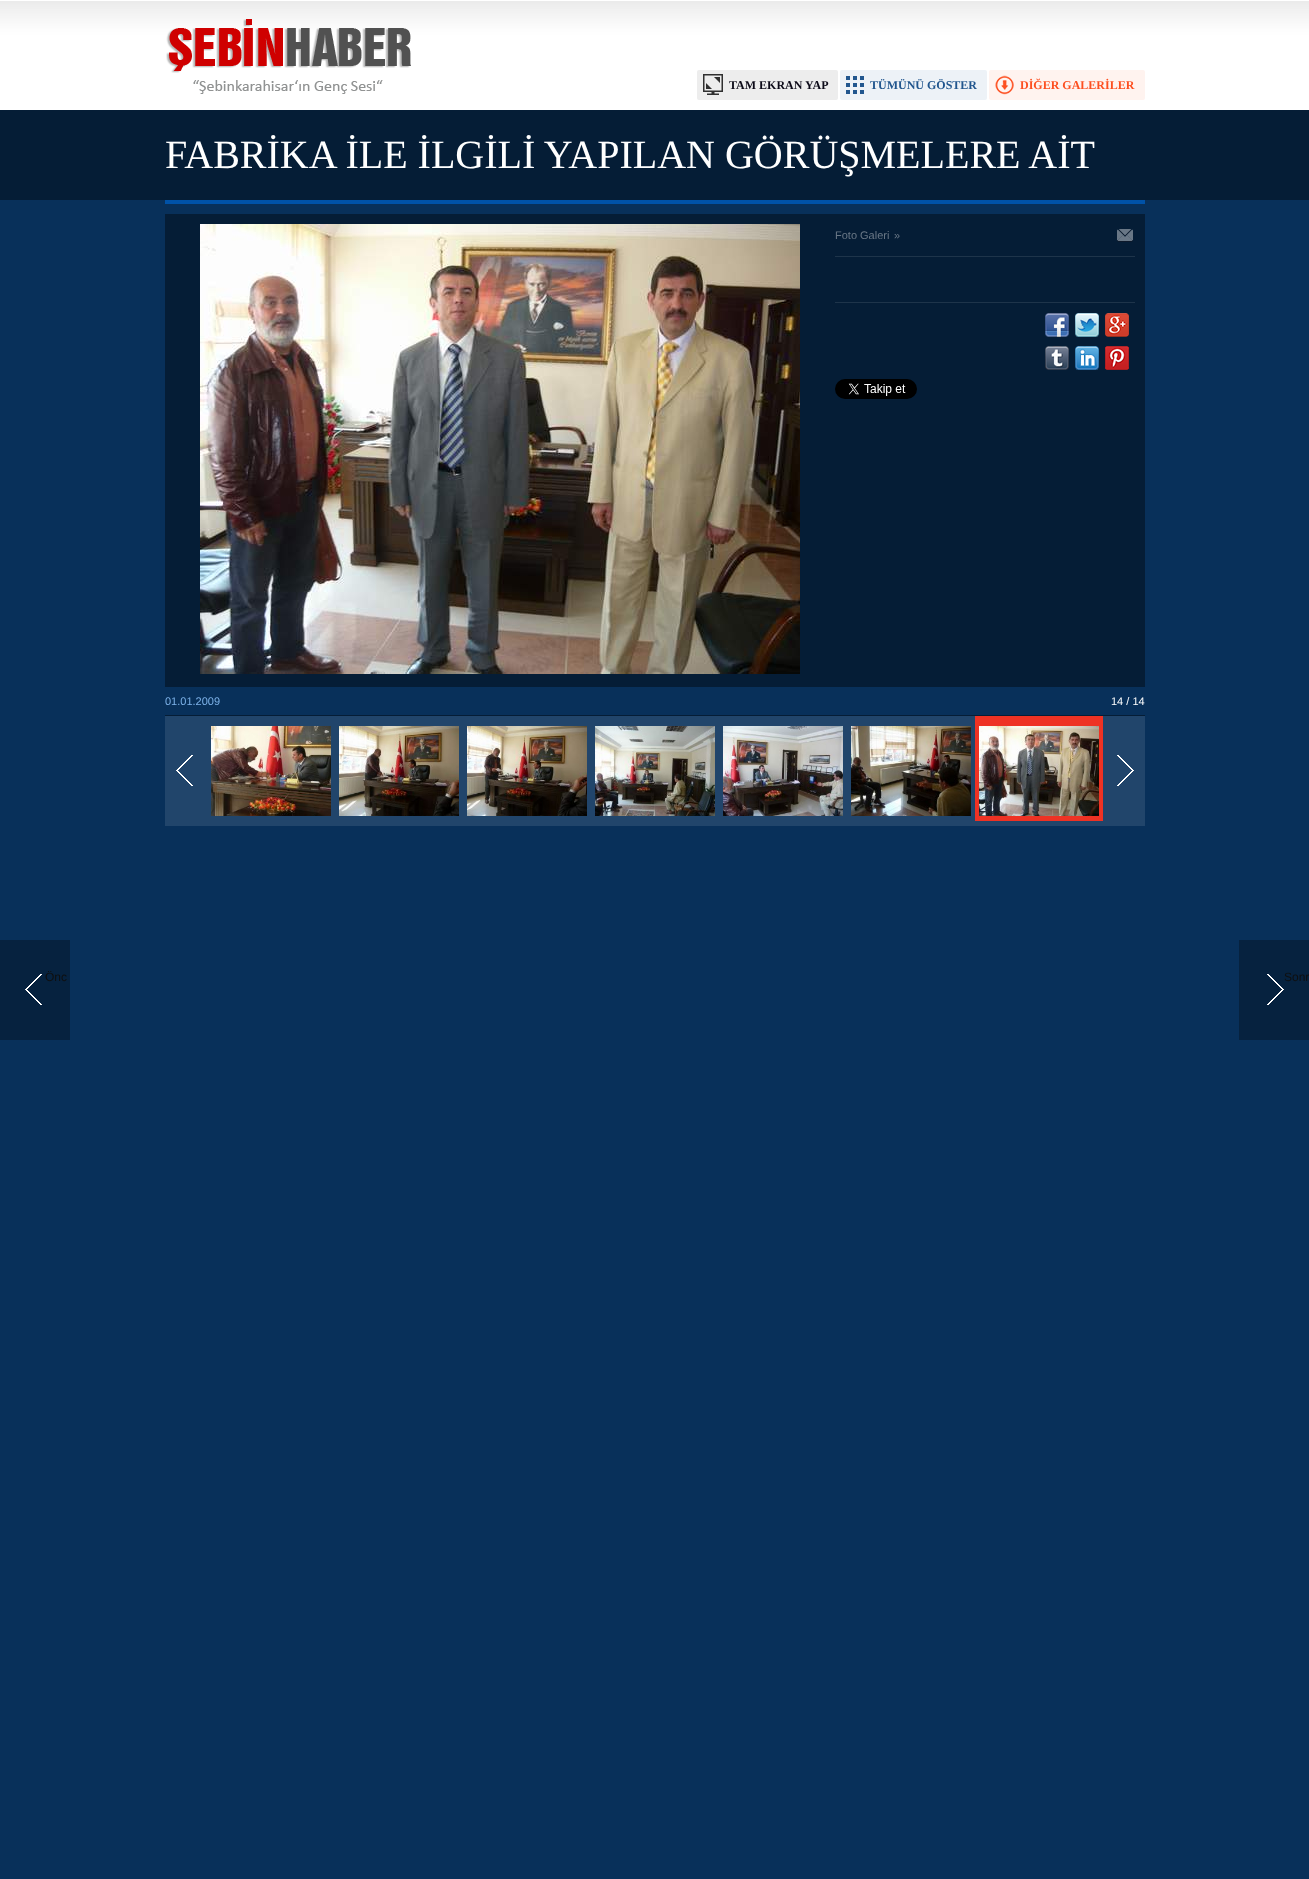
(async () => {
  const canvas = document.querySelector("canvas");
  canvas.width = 1309;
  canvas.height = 1879;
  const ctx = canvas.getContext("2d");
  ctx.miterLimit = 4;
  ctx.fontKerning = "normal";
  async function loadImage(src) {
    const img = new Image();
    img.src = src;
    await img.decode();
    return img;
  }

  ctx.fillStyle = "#08305a";
  ctx.fillRect(0, 0, 1309, 1879);
  ctx.drawImage(await loadImage("img/1.png"), 0, 0, 1309, 200);
  ctx.drawImage(await loadImage("img/2.png"), 166, 19, 245, 75);
  ctx.fillStyle = "#ededed";
  ctx.beginPath();
  ctx.roundRect(697, 70, 141, 30, 2);
  ctx.fill();
  ctx.drawImage(await loadImage("img/3.png"), 703, 74, 20, 21);
  ctx.fillStyle = "#edf2f7";
  ctx.beginPath();
  ctx.roundRect(840, 70, 147, 30, 2);
  ctx.fill();
  ctx.drawImage(await loadImage("img/4.png"), 846, 76, 18, 18);
  ctx.fillStyle = "#fff3ef";
  ctx.beginPath();
  ctx.roundRect(989, 70, 156, 30, 2);
  ctx.fill();
  ctx.drawImage(await loadImage("img/5.png"), 995, 75, 19, 20);
  ctx.fillStyle = "#0052a8";
  ctx.fillRect(165, 200, 980, 4);
  ctx.fillStyle = "#051d36";
  ctx.fillRect(165, 214, 980, 473);
  ctx.drawImage(await loadImage("img/6.png"), 200, 224, 600, 450);
  ctx.drawImage(await loadImage("img/7.png"), 1117, 229, 16, 13);
  ctx.fillStyle = "#1e344a";
  ctx.fillRect(835, 256, 300, 1);
  ctx.fillRect(835, 302, 300, 1);
  ctx.drawImage(await loadImage("img/8.png"), 1045, 313, 24, 24);
  ctx.drawImage(await loadImage("img/9.png"), 1075, 313, 24, 24);
  ctx.drawImage(await loadImage("img/10.png"), 1105, 313, 24, 24);
  ctx.drawImage(await loadImage("img/11.png"), 1045, 346, 24, 24);
  ctx.drawImage(await loadImage("img/12.png"), 1075, 346, 24, 24);
  ctx.drawImage(await loadImage("img/13.png"), 1105, 346, 24, 24);
  ctx.drawImage(await loadImage("img/14.png"), 835, 379, 82, 20);
  ctx.fillStyle = "#21456b";
  ctx.fillRect(165, 716, 980, 110);
  ctx.fillStyle = "#051d36";
  ctx.fillRect(165, 715, 980, 1);
  ctx.drawImage(await loadImage("img/15.png"), 176, 755, 17, 31);
  ctx.drawImage(await loadImage("img/16.png"), 211, 726, 120, 90);
  ctx.drawImage(await loadImage("img/17.png"), 339, 726, 120, 90);
  ctx.drawImage(await loadImage("img/18.png"), 467, 726, 120, 90);
  ctx.drawImage(await loadImage("img/19.png"), 595, 726, 120, 90);
  ctx.drawImage(await loadImage("img/20.png"), 723, 726, 120, 90);
  ctx.drawImage(await loadImage("img/21.png"), 851, 726, 120, 90);
  ctx.fillStyle = "#ee3224";
  ctx.fillRect(975, 716, 128, 105);
  ctx.drawImage(await loadImage("img/22.png"), 979, 726, 120, 90);
  ctx.drawImage(await loadImage("img/23.png"), 1117, 755, 17, 31);
  ctx.fillStyle = "#06223f";
  ctx.fillRect(0, 940, 70, 100);
  ctx.drawImage(await loadImage("img/24.png"), 25, 974, 17, 31);
  ctx.fillRect(1239, 940, 70, 100);
  ctx.drawImage(await loadImage("img/25.png"), 1267, 974, 17, 31);
  ctx.font = "bold 12px Liberation Serif";
  ctx.fillStyle = "#0c0a18";
  ctx.fillText("TAM EKRAN YAP", 729, 89);
  ctx.fillStyle = "#21568e";
  ctx.fillText("TÜMÜNÜ GÖSTER", 870, 89);
  ctx.fillStyle = "#fd4f20";
  ctx.fillText("DİĞER GALERİLER", 1020, 89);
  ctx.font = "40px Liberation Serif";
  ctx.fillStyle = "#ffffff";
  ctx.fillText("FABRİKA İLE İLGİLİ YAPILAN GÖRÜŞMELERE AİT", 165, 168);
  ctx.font = "11px Liberation Sans";
  ctx.fillStyle = "#697786";
  ctx.fillText("Foto Galeri", 835, 239);
  ctx.fillText("»", 894, 239);
  ctx.fillStyle = "#7db2e9";
  ctx.fillText("01.01.2009", 165, 705);
  ctx.fillStyle = "#ffffff";
  ctx.fillText("14 / 14", 1111, 705);
  ctx.font = "12px Liberation Sans";
  ctx.fillStyle = "#0f0f0f";
  ctx.fillText("Önc", 45, 981);
  ctx.fillText("Sonr", 1284, 981);
})();
